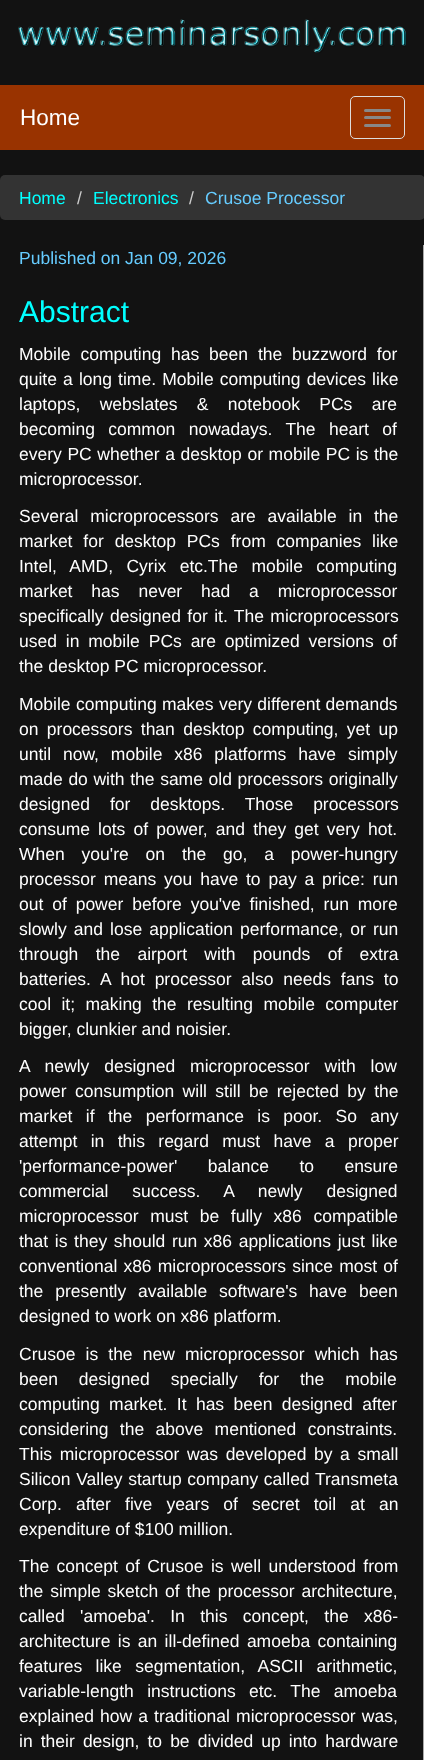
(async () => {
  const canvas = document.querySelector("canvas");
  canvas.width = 424;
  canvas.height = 1760;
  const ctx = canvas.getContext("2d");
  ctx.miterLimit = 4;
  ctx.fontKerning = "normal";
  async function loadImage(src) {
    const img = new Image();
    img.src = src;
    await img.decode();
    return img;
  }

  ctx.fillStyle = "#121212";
  ctx.fillRect(0, 0, 424, 1760);
  ctx.drawImage(await loadImage("img/1.png"), 18, 19, 388, 34);
  ctx.fillStyle = "#993300";
  ctx.fillRect(0, 85, 424, 65);
  ctx.beginPath();
  ctx.roundRect(350.5, 96.5, 54, 42, 4.5);
  ctx.strokeStyle = "#dddddd";
  ctx.stroke();
  ctx.fillStyle = "#888888";
  ctx.beginPath();
  ctx.roundRect(364, 109, 27, 3, 1.5);
  ctx.fill();
  ctx.beginPath();
  ctx.roundRect(364, 116, 27, 3, 1.5);
  ctx.fill();
  ctx.beginPath();
  ctx.roundRect(364, 124, 27, 3, 1.5);
  ctx.fill();
  ctx.fillStyle = "#333333";
  ctx.beginPath();
  ctx.roundRect(0, 175, 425, 45, 5);
  ctx.fill();
  ctx.fillStyle = "#a9a9a9";
  ctx.fillRect(423, 245, 1, 1515);
  ctx.font = "22.5px Liberation Sans";
  ctx.fillStyle = "#ffffff";
  ctx.fillText("Home", 20, 125);
  ctx.font = "17.5px Liberation Sans";
  ctx.fillStyle = "#00ffff";
  ctx.fillText("Home", 19, 204);
  ctx.fillStyle = "#cccccc";
  ctx.fillText("/", 77, 204);
  ctx.fillStyle = "#00ffff";
  ctx.fillText("Electronics", 93, 204);
  ctx.fillStyle = "#cccccc";
  ctx.fillText("/", 189, 204);
  ctx.fillStyle = "#66ccff";
  ctx.fillText("Crusoe Processor", 205, 204);
  ctx.fillText("Published on Jan 09, 2026", 19, 264);
  ctx.font = "30px Liberation Sans";
  ctx.fillStyle = "#00ffff";
  ctx.fillText("Abstract", 19, 322);
  ctx.wordSpacing = "5px";
  ctx.font = "17.5px Liberation Sans";
  ctx.fillStyle = "#ffffff";
  ctx.fillText("Mobile computing has been the buzzword for", 19, 360);
  ctx.wordSpacing = "1.25px";
  ctx.fillText("quite a long time. Mobile computing devices like", 19, 385);
  ctx.wordSpacing = "14.5px";
  ctx.fillText("laptops, webslates & notebook PCs are", 19, 410);
  ctx.wordSpacing = "8.5px";
  ctx.fillText("becoming common nowadays. The heart of", 19, 435);
  ctx.wordSpacing = "0.75px";
  ctx.fillText("every PC whether a desktop or mobile PC is the", 19, 460);
  ctx.wordSpacing = "0px";
  ctx.fillText("microprocessor.", 19, 485);
  ctx.wordSpacing = "7px";
  ctx.fillText("Several microprocessors are available in the", 19, 522);
  ctx.wordSpacing = "6px";
  ctx.fillText("market for desktop PCs from companies like", 19, 547);
  ctx.wordSpacing = "8.5px";
  ctx.fillText("Intel, AMD, Cyrix etc.The mobile computing", 19, 572);
  ctx.wordSpacing = "14px";
  ctx.fillText("market has never had a microprocessor", 19, 597);
  ctx.wordSpacing = "1.5px";
  ctx.fillText("specifically designed for it. The microprocessors", 19, 622);
  ctx.wordSpacing = "4px";
  ctx.fillText("used in mobile PCs are optimized versions of", 19, 647);
  ctx.wordSpacing = "0px";
  ctx.fillText("the desktop PC microprocessor.", 19, 672);
  ctx.wordSpacing = "0.5px";
  ctx.fillText("Mobile computing makes very different demands", 19, 710);
  ctx.wordSpacing = "3.5px";
  ctx.fillText("on processors than desktop computing, yet up", 19, 735);
  ctx.wordSpacing = "7px";
  ctx.fillText("until now, mobile x86 platforms have simply", 19, 760);
  ctx.wordSpacing = "0.75px";
  ctx.fillText("made do with the same old processors originally", 19, 785);
  ctx.wordSpacing = "15px";
  ctx.fillText("designed for desktops. Those processors", 19, 810);
  ctx.wordSpacing = "3.25px";
  ctx.fillText("consume lots of power, and they get very hot.", 19, 835);
  ctx.wordSpacing = "12px";
  ctx.fillText("When you're on the go, a power-hungry", 19, 860);
  ctx.wordSpacing = "3px";
  ctx.fillText("processor means you have to pay a price: run", 19, 885);
  ctx.wordSpacing = "4px";
  ctx.fillText("out of power before you've finished, run more", 19, 910);
  ctx.wordSpacing = "2.25px";
  ctx.fillText("slowly and lose application performance, or run", 19, 935);
  ctx.wordSpacing = "12.5px";
  ctx.fillText("through the airport with pounds of extra", 19, 960);
  ctx.wordSpacing = "5px";
  ctx.fillText("batteries. A hot processor also needs fans to", 19, 985);
  ctx.wordSpacing = "5.5px";
  ctx.fillText("cool it; making the resulting mobile computer", 19, 1010);
  ctx.wordSpacing = "0px";
  ctx.fillText("bigger, clunkier and noisier.", 19, 1035);
  ctx.wordSpacing = "10px";
  ctx.fillText("A newly designed microprocessor with low", 19, 1072);
  ctx.wordSpacing = "3.5px";
  ctx.fillText("power consumption will still be rejected by the", 19, 1097);
  ctx.wordSpacing = "8.5px";
  ctx.fillText("market if the performance is poor. So any", 19, 1122);
  ctx.fillText("attempt in this regard must have a proper", 19, 1147);
  ctx.wordSpacing = "25.5px";
  ctx.fillText("'performance-power' balance to ensure", 19, 1172);
  ctx.wordSpacing = "19px";
  ctx.fillText("commercial success. A newly designed", 19, 1197);
  ctx.wordSpacing = "6.75px";
  ctx.fillText("microprocessor must be fully x86 compatible", 19, 1222);
  ctx.wordSpacing = "1.75px";
  ctx.fillText("that is they should run x86 applications just like", 19, 1247);
  ctx.wordSpacing = "1.25px";
  ctx.fillText("conventional x86 microprocessors since most of", 19, 1272);
  ctx.wordSpacing = "7px";
  ctx.fillText("the presently available software's have been", 19, 1297);
  ctx.wordSpacing = "0px";
  ctx.fillText("designed to work on x86 platform.", 19, 1322);
  ctx.wordSpacing = "5.25px";
  ctx.fillText("Crusoe is the new microprocessor which has", 19, 1360);
  ctx.wordSpacing = "16px";
  ctx.fillText("been designed specially for the mobile", 19, 1385);
  ctx.wordSpacing = "4.5px";
  ctx.fillText("computing market. It has been designed after", 19, 1410);
  ctx.wordSpacing = "6.5px";
  ctx.fillText("considering the above mentioned constraints.", 19, 1435);
  ctx.wordSpacing = "2.75px";
  ctx.fillText("This microprocessor was developed by a small", 19, 1460);
  ctx.wordSpacing = "0.75px";
  ctx.fillText("Silicon Valley startup company called Transmeta", 19, 1485);
  ctx.wordSpacing = "9.25px";
  ctx.fillText("Corp. after five years of secret toil at an", 19, 1510);
  ctx.wordSpacing = "0px";
  ctx.fillText("expenditure of $100 million.", 19, 1535);
  ctx.wordSpacing = "2.5px";
  ctx.fillText("The concept of Crusoe is well understood from", 19, 1572);
  ctx.wordSpacing = "2px";
  ctx.fillText("the simple sketch of the processor architecture,", 19, 1597);
  ctx.wordSpacing = "10.5px";
  ctx.fillText("called 'amoeba'. In this concept, the x86-", 19, 1622);
  ctx.wordSpacing = "2.5px";
  ctx.fillText("architecture is an ill-defined amoeba containing", 19, 1647);
  ctx.wordSpacing = "8.5px";
  ctx.fillText("features like segmentation, ASCII arithmetic,", 19, 1672);
  ctx.fillText("variable-length instructions etc. The amoeba", 19, 1697);
  ctx.wordSpacing = "1.25px";
  ctx.fillText("explained how a traditional microprocessor was,", 19, 1722);
  ctx.wordSpacing = "3.25px";
  ctx.fillText("in their design, to be divided up into hardware", 19, 1747);
})();
